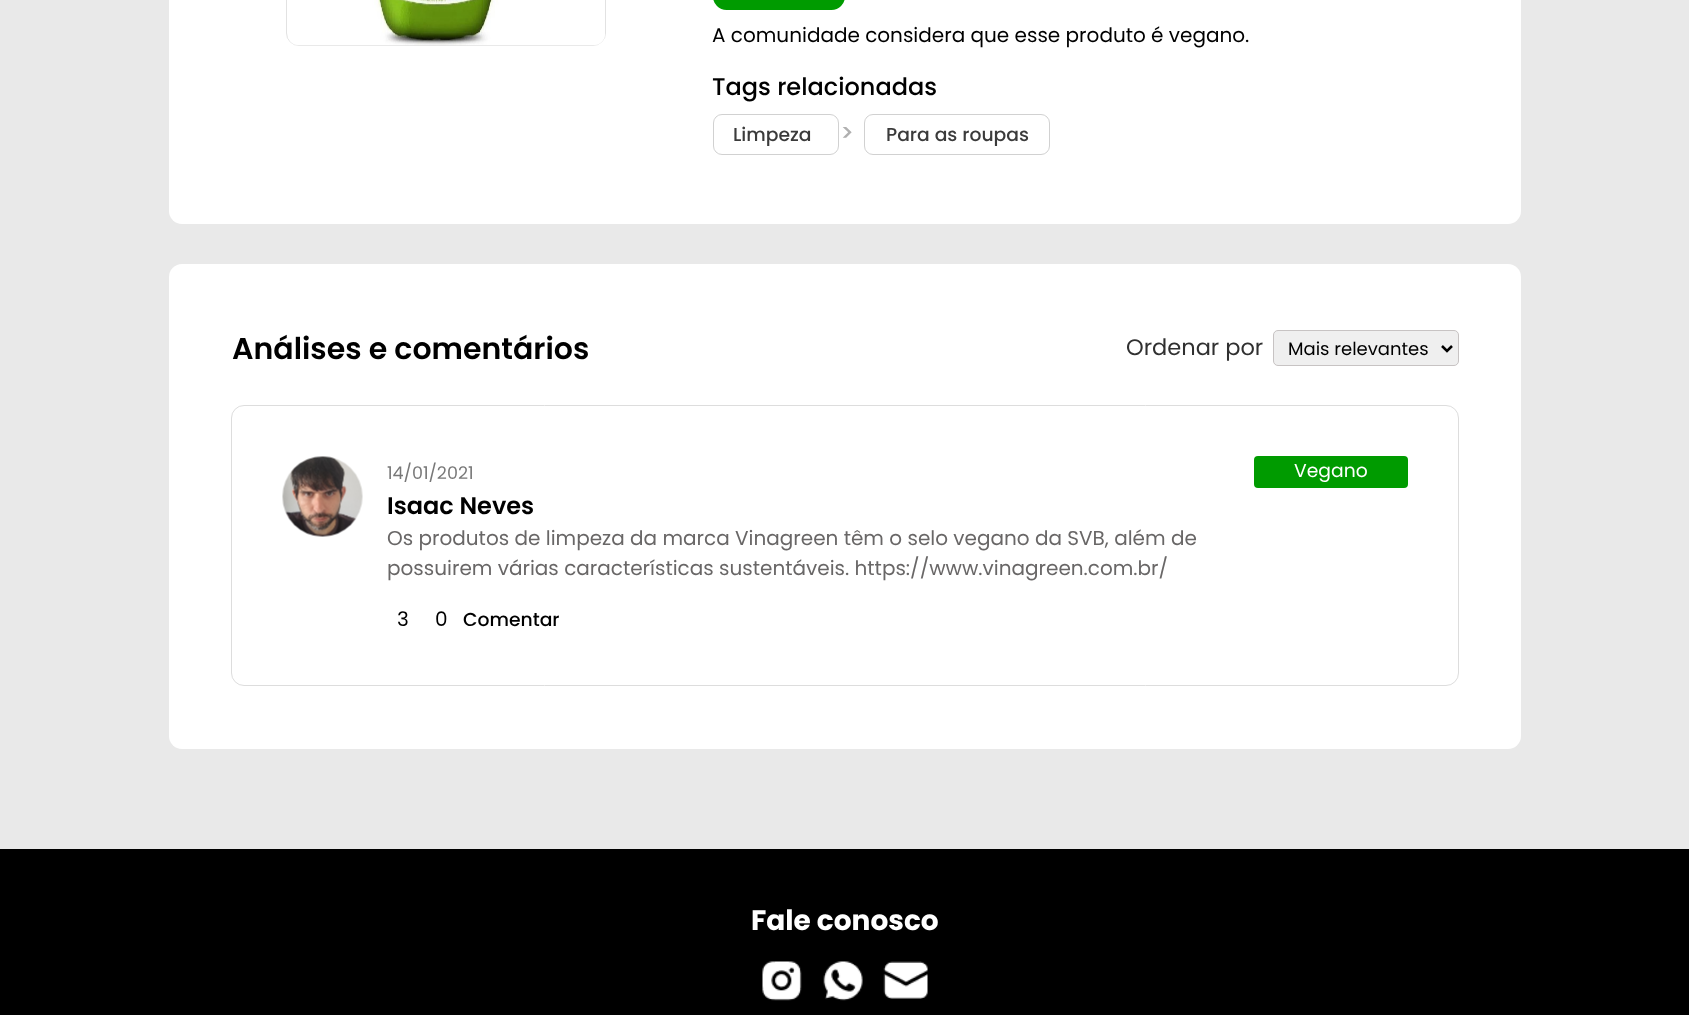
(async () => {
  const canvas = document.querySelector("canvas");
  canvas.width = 1689;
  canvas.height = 1015;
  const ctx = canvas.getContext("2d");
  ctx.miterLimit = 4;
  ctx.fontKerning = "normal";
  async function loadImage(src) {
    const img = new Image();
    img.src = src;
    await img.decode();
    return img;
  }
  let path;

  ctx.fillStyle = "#e9e9e9";
  ctx.fillRect(0, 0, 1689, 1015);
  ctx.fillStyle = "#ffffff";
  ctx.beginPath();
  ctx.roundRect(169, -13, 1352, 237, 13);
  ctx.fill();
  ctx.beginPath();
  ctx.roundRect(286.5, -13.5, 319, 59, 12.5);
  ctx.strokeStyle = "#e2e2e2";
  ctx.stroke();
  ctx.drawImage(await loadImage("img/1.png"), 288, 0, 317, 46);
  ctx.fillStyle = "#009b00";
  ctx.beginPath();
  ctx.roundRect(713, -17, 132, 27, 17);
  ctx.fill();
  ctx.beginPath();
  ctx.roundRect(713.5, 114.5, 125, 40, 8.5);
  ctx.strokeStyle = "#d1d1d1";
  ctx.stroke();
  ctx.beginPath();
  ctx.roundRect(864.5, 114.5, 185, 40, 8.5);
  ctx.stroke();
  ctx.fillStyle = "#ffffff";
  ctx.beginPath();
  ctx.roundRect(169, 264, 1352, 485, 13);
  ctx.fill();
  ctx.fillStyle = "#efefef";
  ctx.beginPath();
  ctx.roundRect(1273.5, 330.5, 185, 35, 4.5);
  ctx.fill();
  ctx.strokeStyle = "#c7c3c3";
  ctx.stroke();
  path = new Path2D("M1442 346L1447 351L1452 346");
  ctx.strokeStyle = "#000000";
  ctx.lineWidth = 2.5;
  ctx.stroke(path);
  ctx.beginPath();
  ctx.roundRect(231.5, 405.5, 1227, 280, 12.5);
  ctx.strokeStyle = "#dddddd";
  ctx.lineWidth = 1;
  ctx.stroke();
  ctx.drawImage(await loadImage("img/2.png"), 282, 456, 81, 81);
  ctx.fillStyle = "#009b00";
  ctx.beginPath();
  ctx.roundRect(1254, 456, 154, 32, 4);
  ctx.fill();
  ctx.fillStyle = "#000000";
  ctx.fillRect(0, 849, 1689, 166);
  ctx.drawImage(await loadImage("img/3.png"), 762, 961, 40, 40);
  ctx.drawImage(await loadImage("img/4.png"), 823, 961, 40, 40);
  ctx.drawImage(await loadImage("img/5.png"), 883, 961, 45, 38);
  ctx.font = "20px Poppins";
  ctx.fillText("A comunidade considera que esse produto é vegano.", 712, 42);
  ctx.font = "500 24px Poppins";
  ctx.fillText("Tags relacionadas", 712, 95);
  ctx.font = "500 18.75px Poppins";
  ctx.fillStyle = "#3b3b3b";
  ctx.fillText("Limpeza", 733, 141);
  ctx.font = "500 24px Poppins";
  ctx.fillStyle = "#b0b0b0";
  ctx.fillText(">", 840, 141);
  ctx.font = "500 18.75px Poppins";
  ctx.fillStyle = "#3b3b3b";
  ctx.fillText("Para as roupas", 886, 141);
  ctx.font = "600 30px Poppins";
  ctx.fillStyle = "#000000";
  ctx.fillText("Análises e comentários", 232, 359);
  ctx.font = "22.5px Poppins";
  ctx.fillStyle = "#303030";
  ctx.fillText("Ordenar por", 1126, 355);
  ctx.font = "18px Poppins";
  ctx.fillStyle = "#000000";
  ctx.fillText("Mais relevantes", 1288, 355);
  ctx.font = "17.5px Poppins";
  ctx.fillStyle = "#787878";
  ctx.fillText("14/01/2021", 387, 479);
  ctx.font = "600 24px Poppins";
  ctx.fillStyle = "#000000";
  ctx.fillText("Isaac Neves", 387, 514);
  ctx.font = "20px Poppins";
  ctx.fillStyle = "#696767";
  ctx.fillText("Os produtos de limpeza da marca Vinagreen têm o selo vegano da SVB, além de", 387, 545);
  ctx.fillText("possuirem várias características sustentáveis. https://www.vinagreen.com.br/", 387, 575);
  ctx.font = "18.75px Poppins";
  ctx.fillStyle = "#ffffff";
  ctx.fillText("Vegano", 1294, 477);
  ctx.font = "20px Poppins";
  ctx.fillStyle = "#000000";
  ctx.fillText("3", 397, 626);
  ctx.fillText("0", 435, 626);
  ctx.font = "500 18.75px Poppins";
  ctx.fillText("Comentar", 463, 626);
  ctx.font = "bold 28px Poppins";
  ctx.fillStyle = "#ffffff";
  ctx.fillText("Fale conosco", 751, 930);
})();
